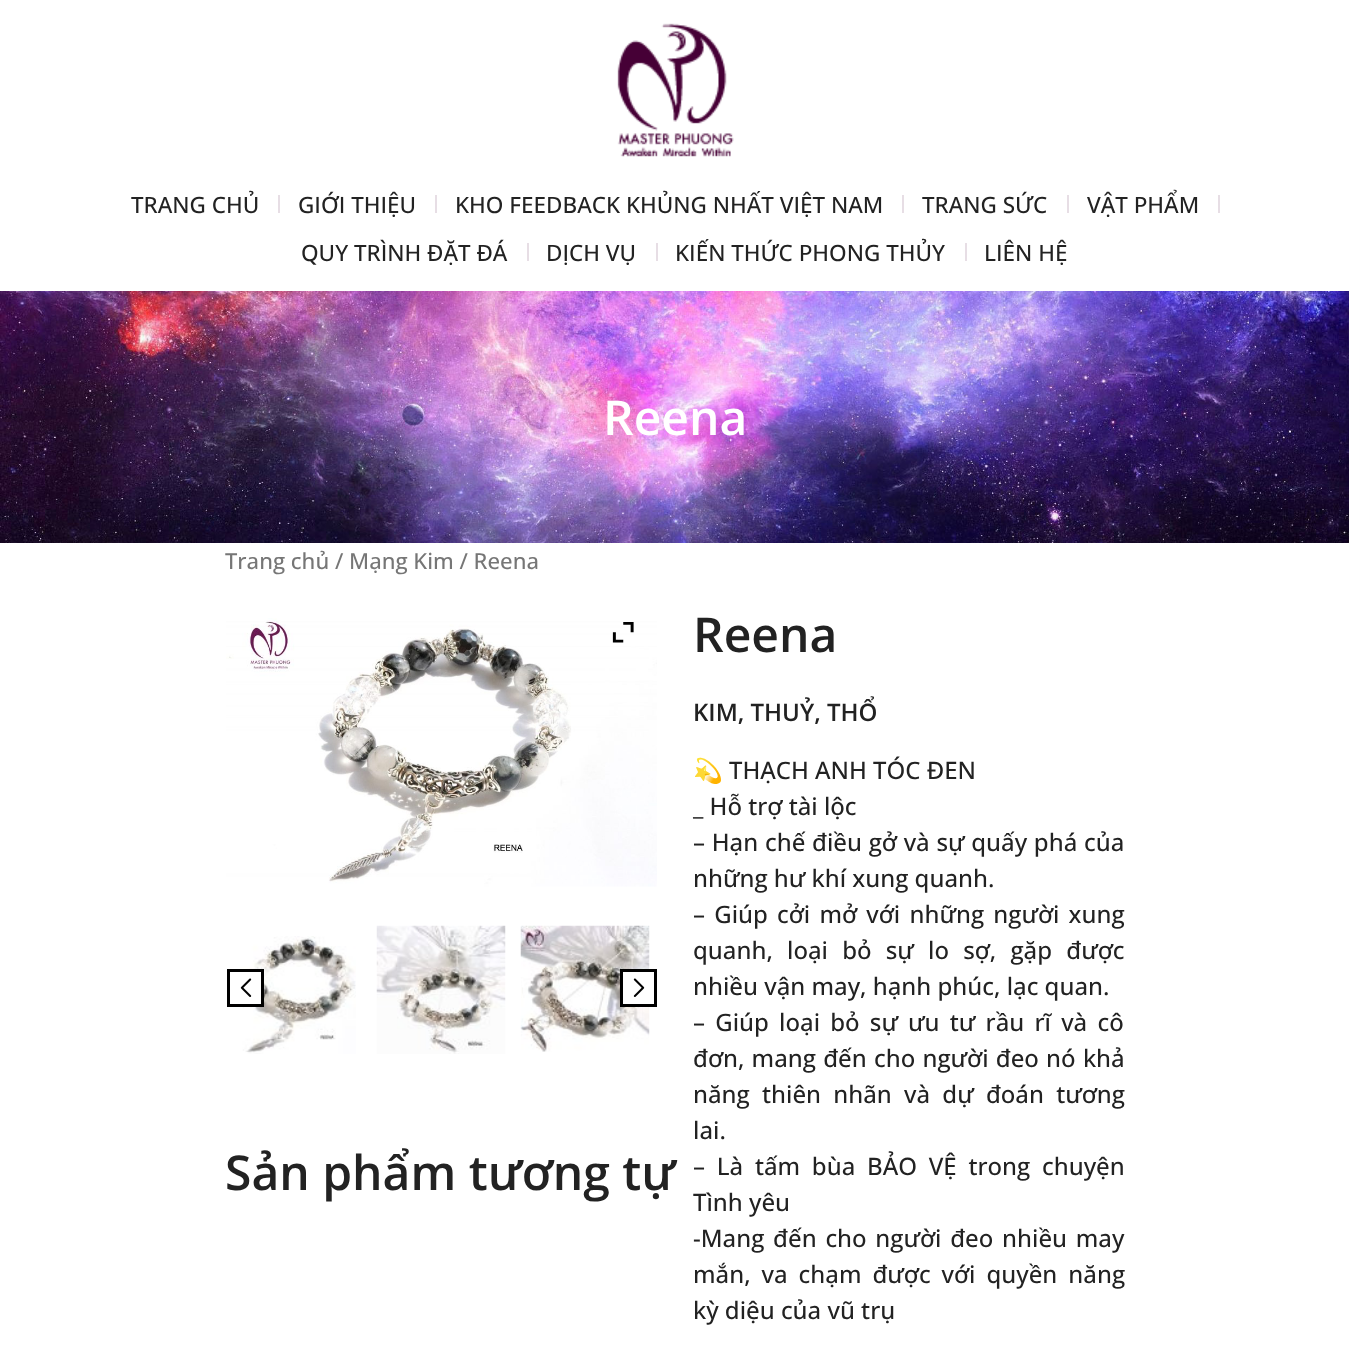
(async () => {
  const canvas = document.querySelector("canvas");
  canvas.width = 1349;
  canvas.height = 1354;
  const ctx = canvas.getContext("2d");
  ctx.miterLimit = 4;
  ctx.fontKerning = "normal";
  async function loadImage(src) {
    const img = new Image();
    img.src = src;
    await img.decode();
    return img;
  }

  ctx.fillStyle = "#ffffff";
  ctx.fillRect(0, 0, 1349, 1354);
  ctx.drawImage(await loadImage("img/1.png"), 617, 23, 117, 134);
  for (const [x, y, w, h, color] of [
    [278, 195, 2, 18, "#e7dee5"],
    [435, 195, 2, 18, "#e7dee5"],
    [902, 195, 2, 18, "#e7dee5"],
    [1067, 195, 2, 18, "#e7dee5"],
    [1218, 195, 2, 18, "#e7dee5"],
    [527, 243, 2, 18, "#e7dee5"],
    [656, 243, 2, 18, "#e7dee5"],
    [965, 243, 2, 18, "#e7dee5"],
  ]) {
    ctx.fillStyle = color;
    ctx.fillRect(x, y, w, h);
  }
  ctx.drawImage(await loadImage("img/2.png"), 0, 291, 1349, 252);
  ctx.drawImage(await loadImage("img/3.png"), 226, 618, 431, 269);
  ctx.drawImage(await loadImage("img/4.png"), 612, 622, 22, 21);
  ctx.drawImage(await loadImage("img/5.png"), 233, 936, 123, 118);
  ctx.drawImage(await loadImage("img/6.png"), 376, 925, 130, 129);
  ctx.drawImage(await loadImage("img/7.png"), 520, 925, 130, 127);
  ctx.fillStyle = "#ffffff";
  ctx.fillRect(233, 972, 28, 32);
  ctx.strokeStyle = "#000000";
  ctx.lineWidth = 3;
  ctx.strokeRect(228.5, 970.5, 34, 35);
  ctx.drawImage(await loadImage("img/8.png"), 240, 978, 12, 19);
  ctx.fillRect(623, 972, 27, 32);
  ctx.strokeRect(621.5, 970.5, 34, 35);
  ctx.drawImage(await loadImage("img/9.png"), 633, 978, 12, 19);
  ctx.font = "500 22.5px Open Sans";
  ctx.fillStyle = "#222222";
  for (const [text, x, y] of [
    ["TRANG CHỦ", 131, 213],
    ["GIỚI THIỆU", 298, 213],
    ["KHO FEEDBACK KHỦNG NHẤT VIỆT NAM", 455, 213],
    ["TRANG SỨC", 922, 213],
    ["VẬT PHẨM", 1087, 213],
    ["QUY TRÌNH ĐẶT ĐÁ", 301, 261],
    ["DỊCH VỤ", 546, 261],
    ["KIẾN THỨC PHONG THỦY", 675, 261],
    ["LIÊN HỆ", 984, 261],
  ]) {
    ctx.fillText(text, x, y);
  }
  ctx.font = "600 48px Open Sans";
  ctx.fillStyle = "#ffffff";
  ctx.fillText("Reena", 603, 435);
  ctx.font = "500 22.1px Open Sans";
  ctx.fillStyle = "#767676";
  ctx.fillText("Trang chủ / Mạng Kim / Reena", 225, 569);
  ctx.font = "600 48px Open Sans";
  ctx.fillStyle = "#222222";
  ctx.fillText("Reena", 693, 652);
  ctx.font = "600 24px Open Sans";
  ctx.fillText("KIM, THUỶ, THỔ", 693, 721);
  ctx.font = "24px Noto Color Emoji";
  ctx.fillText("💫", 693, 779);
  ctx.font = "500 24px Open Sans";
  ctx.fillText("THẠCH ANH TÓC ĐEN", 729, 779);
  ctx.fillText("_ Hỗ trợ tài lộc", 693, 815);
  ctx.wordSpacing = "0.5px";
  ctx.fillText("– Hạn chế điều gở và sự quấy phá của", 693, 851);
  ctx.wordSpacing = "0px";
  ctx.fillText("những hư khí xung quanh.", 693, 887);
  ctx.wordSpacing = "3px";
  ctx.fillText("– Giúp cởi mở với những người xung", 693, 923);
  ctx.wordSpacing = "8px";
  ctx.fillText("quanh, loại bỏ sự lo sợ, gặp được", 693, 959);
  ctx.wordSpacing = "0px";
  ctx.fillText("nhiều vận may, hạnh phúc, lạc quan.", 693, 995);
  ctx.wordSpacing = "4px";
  ctx.fillText("– Giúp loại bỏ sự ưu tư rầu rĩ và cô", 693, 1031);
  ctx.wordSpacing = "1px";
  ctx.fillText("đơn, mang đến cho người đeo nó khả", 693, 1067);
  ctx.wordSpacing = "6px";
  ctx.fillText("năng thiên nhãn và dự đoán tương", 693, 1103);
  ctx.wordSpacing = "0px";
  ctx.fillText("lai.", 693, 1139);
  ctx.wordSpacing = "5.5px";
  ctx.fillText("– Là tấm bùa BẢO VỆ trong chuyện", 693, 1175);
  ctx.wordSpacing = "0px";
  ctx.fillText("Tình yêu", 693, 1211);
  ctx.wordSpacing = "2.5px";
  ctx.fillText("-Mang đến cho người đeo nhiều may", 693, 1247);
  ctx.wordSpacing = "4.75px";
  ctx.fillText("mắn, va chạm được với quyền năng", 693, 1283);
  ctx.wordSpacing = "0px";
  ctx.fillText("kỳ diệu của vũ trụ", 693, 1319);
  ctx.font = "600 48px Open Sans";
  ctx.fillText("Sản phẩm tương tự", 225, 1190);
})();
